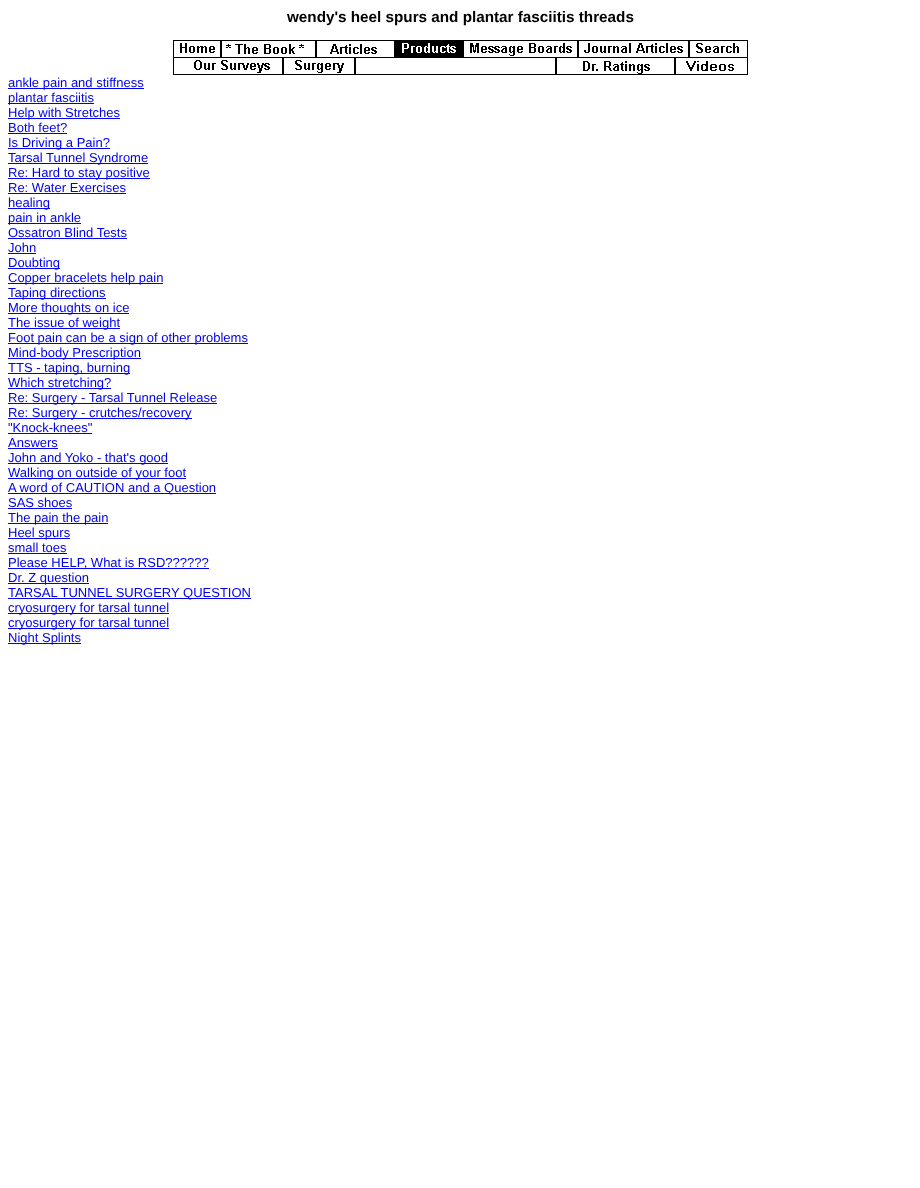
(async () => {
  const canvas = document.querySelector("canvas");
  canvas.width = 920;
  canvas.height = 1188;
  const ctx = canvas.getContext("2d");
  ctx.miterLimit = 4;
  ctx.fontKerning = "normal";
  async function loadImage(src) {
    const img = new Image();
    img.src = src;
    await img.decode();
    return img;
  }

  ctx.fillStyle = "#ffffff";
  ctx.fillRect(0, 0, 920, 1188);
  ctx.drawImage(await loadImage("img/1.png"), 173, 40, 575, 35);
  for (const [x, y, w, h, color] of [
    [8, 88, 136, 1, "#0000ee"],
    [8, 103, 86, 1, "#0000ee"],
    [8, 118, 112, 1, "#0000ee"],
    [8, 133, 59, 1, "#0000ee"],
    [8, 148, 102, 1, "#0000ee"],
    [8, 163, 140, 1, "#0000ee"],
    [8, 178, 142, 1, "#0000ee"],
    [8, 193, 118, 1, "#0000ee"],
    [8, 208, 42, 1, "#0000ee"],
    [8, 223, 73, 1, "#0000ee"],
    [8, 238, 119, 1, "#0000ee"],
    [8, 253, 28, 1, "#0000ee"],
    [8, 268, 52, 1, "#0000ee"],
    [8, 283, 155, 1, "#0000ee"],
    [8, 298, 98, 1, "#0000ee"],
    [8, 313, 121, 1, "#0000ee"],
    [8, 328, 112, 1, "#0000ee"],
    [8, 343, 240, 1, "#0000ee"],
    [8, 358, 133, 1, "#0000ee"],
    [8, 373, 122, 1, "#0000ee"],
    [8, 388, 103, 1, "#0000ee"],
    [8, 403, 209, 1, "#0000ee"],
    [8, 418, 184, 1, "#0000ee"],
    [8, 433, 84, 1, "#0000ee"],
    [8, 448, 50, 1, "#0000ee"],
    [8, 463, 160, 1, "#0000ee"],
    [8, 478, 178, 1, "#0000ee"],
    [8, 493, 208, 1, "#0000ee"],
    [8, 508, 64, 1, "#0000ee"],
    [8, 523, 100, 1, "#0000ee"],
    [8, 538, 62, 1, "#0000ee"],
    [8, 553, 59, 1, "#0000ee"],
    [8, 568, 201, 1, "#0000ee"],
    [8, 583, 81, 1, "#0000ee"],
    [8, 598, 243, 1, "#0000ee"],
    [8, 613, 161, 1, "#0000ee"],
    [8, 628, 161, 1, "#0000ee"],
    [8, 643, 73, 1, "#0000ee"],
  ]) {
    ctx.fillStyle = color;
    ctx.fillRect(x, y, w, h);
  }
  ctx.font = "bold 15.25px Liberation Sans";
  ctx.fillStyle = "#000000";
  ctx.fillText("wendy's heel spurs and plantar fasciitis threads", 287, 22);
  ctx.font = "13px Liberation Sans";
  ctx.fillStyle = "#0000ee";
  for (const [text, x, y] of [
    ["ankle pain and stiffness", 8, 87],
    ["plantar fasciitis", 8, 102],
    ["Help with Stretches", 8, 117],
    ["Both feet?", 8, 132],
    ["Is Driving a Pain?", 8, 147],
    ["Tarsal Tunnel Syndrome", 8, 162],
    ["Re: Hard to stay positive", 8, 177],
    ["Re: Water Exercises", 8, 192],
    ["healing", 8, 207],
    ["pain in ankle", 8, 222],
    ["Ossatron Blind Tests", 8, 237],
    ["John", 8, 252],
    ["Doubting", 8, 267],
    ["Copper bracelets help pain", 8, 282],
    ["Taping directions", 8, 297],
    ["More thoughts on ice", 8, 312],
    ["The issue of weight", 8, 327],
    ["Foot pain can be a sign of other problems", 8, 342],
    ["Mind-body Prescription", 8, 357],
    ["TTS - taping, burning", 8, 372],
    ["Which stretching?", 8, 387],
    ["Re: Surgery - Tarsal Tunnel Release", 8, 402],
    ["Re: Surgery - crutches/recovery", 8, 417],
    ["\"Knock-knees\"", 8, 432],
    ["Answers", 8, 447],
    ["John and Yoko - that's good", 8, 462],
    ["Walking on outside of your foot", 8, 477],
    ["A word of CAUTION and a Question", 8, 492],
    ["SAS shoes", 8, 507],
    ["The pain the pain", 8, 522],
    ["Heel spurs", 8, 537],
    ["small toes", 8, 552],
    ["Please HELP, What is RSD??????", 8, 567],
    ["Dr. Z question", 8, 582],
    ["TARSAL TUNNEL SURGERY QUESTION", 8, 597],
    ["cryosurgery for tarsal tunnel", 8, 612],
    ["cryosurgery for tarsal tunnel", 8, 627],
    ["Night Splints", 8, 642],
  ]) {
    ctx.fillText(text, x, y);
  }
})();
